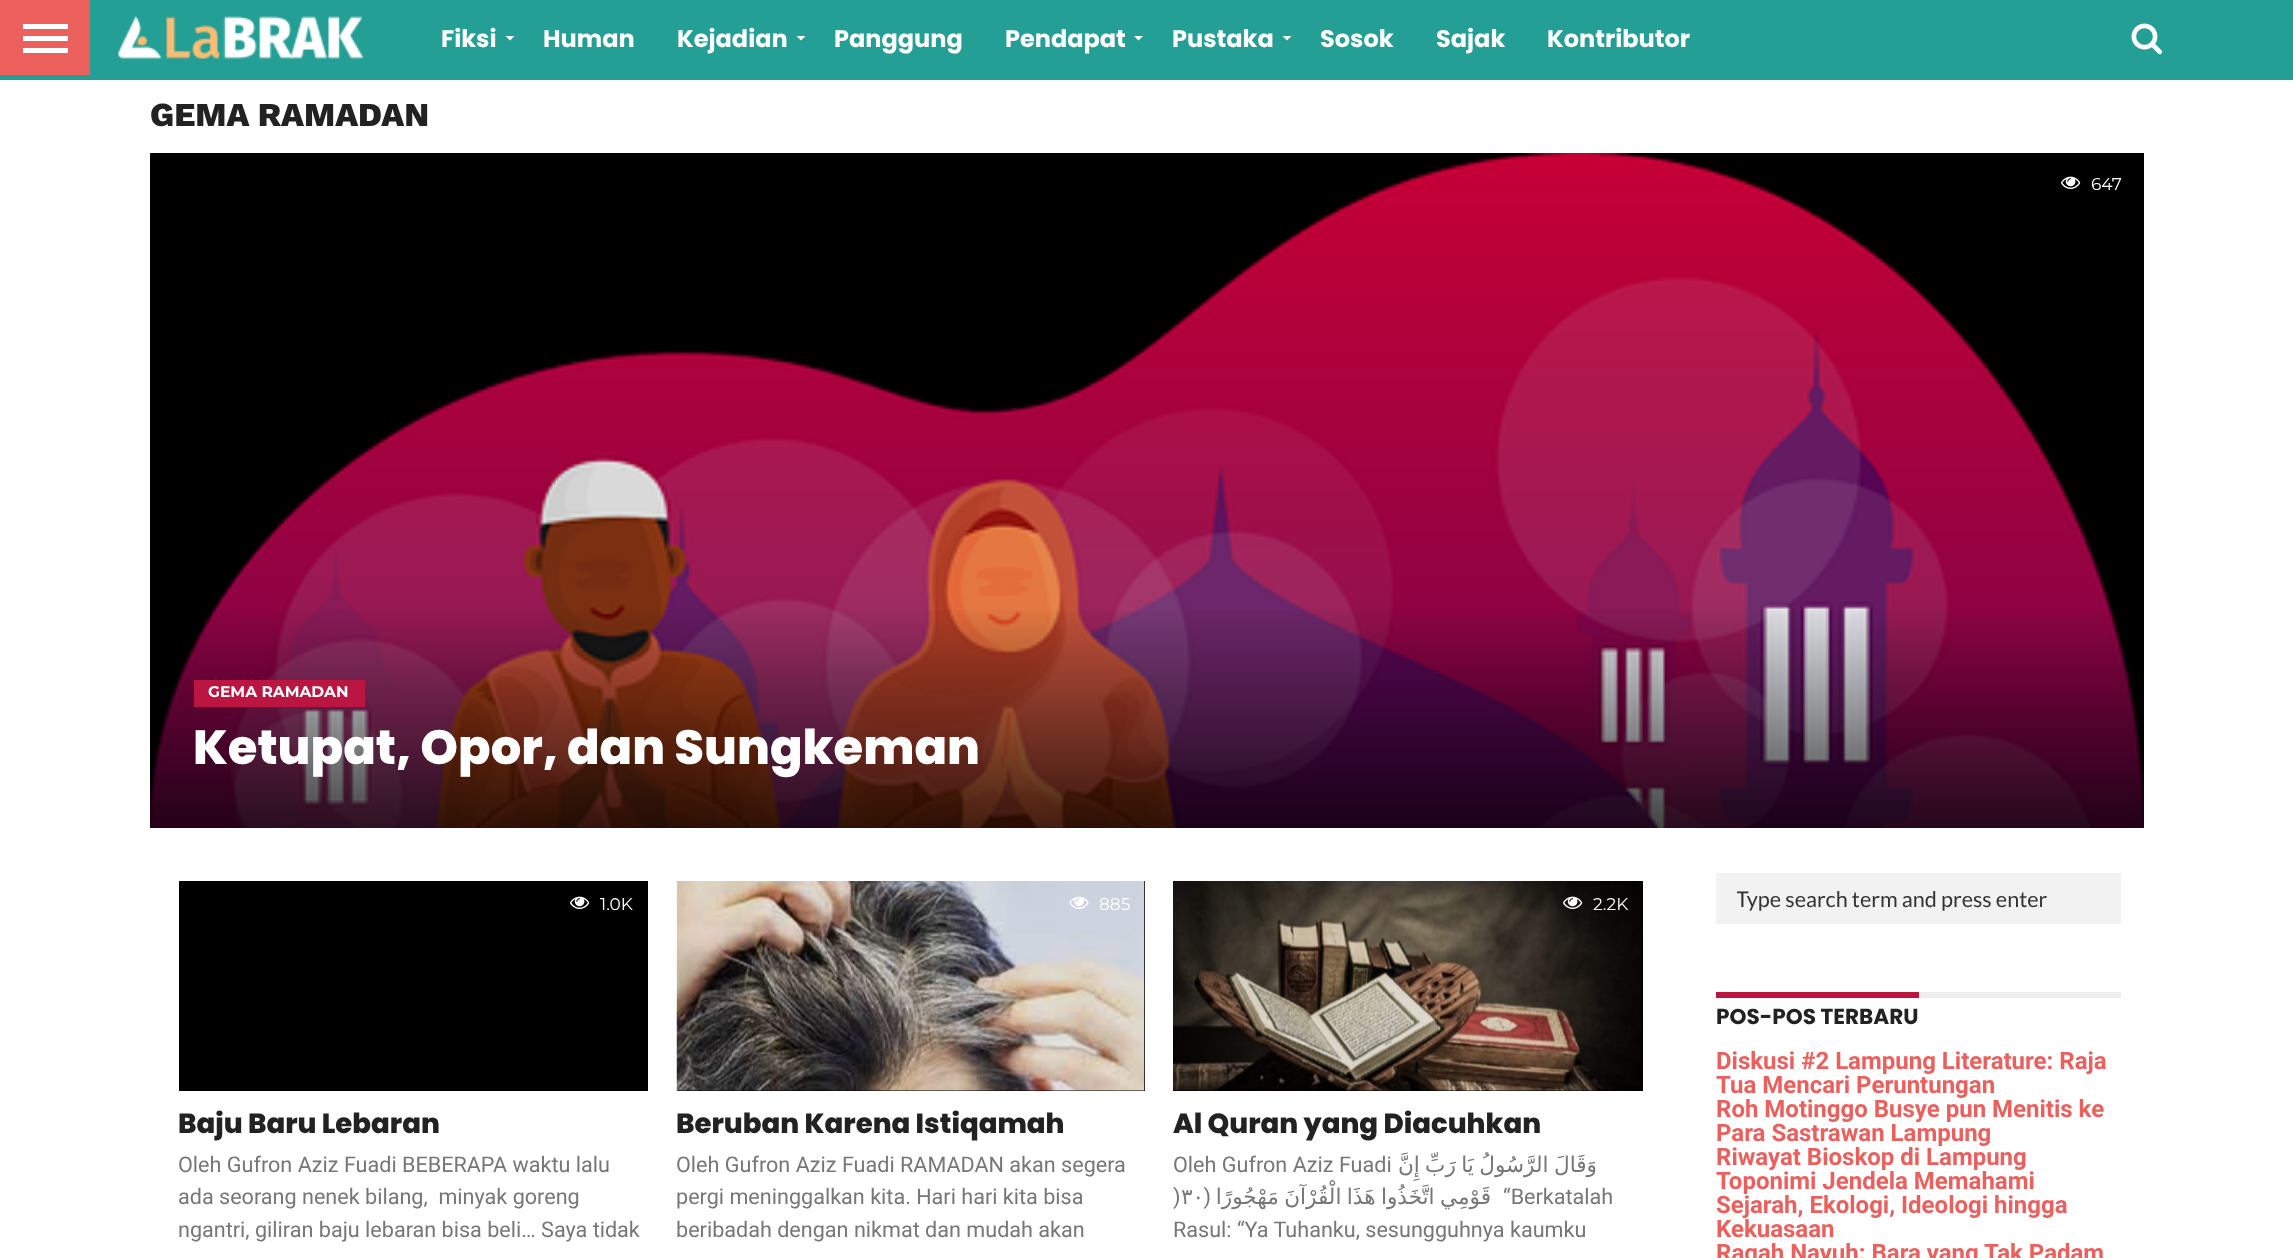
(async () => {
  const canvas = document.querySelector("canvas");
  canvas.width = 2293;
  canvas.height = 1258;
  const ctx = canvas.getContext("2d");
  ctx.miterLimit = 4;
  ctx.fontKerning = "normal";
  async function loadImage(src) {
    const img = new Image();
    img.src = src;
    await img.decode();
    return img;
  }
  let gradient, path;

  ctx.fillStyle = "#ffffff";
  ctx.fillRect(0, 0, 2293, 1258);
  for (const [x, y, w, h, color] of [
    [0, 0, 2293, 80, "#239f95"],
    [0, 0, 90, 75, "#eb5f5d"],
    [23, 24, 45, 5, "#ffffff"],
    [23, 36, 45, 5, "#ffffff"],
    [23, 48, 45, 5, "#ffffff"],
  ]) {
    ctx.fillStyle = color;
    ctx.fillRect(x, y, w, h);
  }
  ctx.drawImage(await loadImage("img/1.png"), 118, 16, 246, 43);
  path = new Path2D("M505.5 36H514.5L510 40.5Z");
  ctx.fill(path);
  path = new Path2D("M796.5 36H805.5L801 40.5Z");
  ctx.fill(path);
  path = new Path2D("M1134 36H1143L1138.5 40.5Z");
  ctx.fill(path);
  path = new Path2D("M1282.5 36H1291.5L1287 40.5Z");
  ctx.fill(path);
  ctx.drawImage(await loadImage("img/2.png"), 2131, 23, 32, 32);
  ctx.fillStyle = "#000000";
  ctx.fillRect(150, 153, 1994, 675);
  ctx.drawImage(await loadImage("img/3.png"), 150, 153, 1994, 675);
  ctx.drawImage(await loadImage("img/4.png"), 2061, 176, 20, 13);
  gradient = ctx.createLinearGradient(1148, 603, 1148, 828);
  gradient.addColorStop(0, "rgba(0, 0, 0, 0)");
  gradient.addColorStop(1, "rgba(0, 0, 0, 0.7)");
  ctx.fillStyle = gradient;
  ctx.fillRect(150, 610, 1994, 218);
  ctx.fillStyle = "#bb1542";
  ctx.fillRect(194, 680, 171, 27);
  ctx.fillStyle = "#000000";
  ctx.fillRect(179, 881, 469, 210);
  ctx.drawImage(await loadImage("img/4.png"), 570, 896, 20, 13);
  ctx.fillRect(677, 881, 468, 210);
  ctx.drawImage(await loadImage("img/5.png"), 676, 881, 469, 210);
  ctx.drawImage(await loadImage("img/6.png"), 1069, 896, 20, 13);
  ctx.fillRect(1173, 881, 470, 210);
  ctx.drawImage(await loadImage("img/7.png"), 1173, 881, 469, 210);
  ctx.drawImage(await loadImage("img/8.png"), 1563, 896, 20, 13);
  for (const [x, y, w, h, color] of [
    [1716, 873, 405, 51, "#f2f2f2"],
    [1919, 992, 202, 6, "#eeeeee"],
    [1716, 992, 203, 6, "#bb1542"],
  ]) {
    ctx.fillStyle = color;
    ctx.fillRect(x, y, w, h);
  }
  ctx.font = "bold 24px Poppins";
  ctx.fillStyle = "#ffffff";
  for (const [text, x, y] of [
    ["Fiksi", 441, 47],
    ["Human", 543, 47],
    ["Kejadian", 677, 47],
    ["Panggung", 834, 47],
    ["Pendapat", 1005, 47],
    ["Pustaka", 1172, 47],
    ["Sosok", 1320, 47],
    ["Sajak", 1436, 47],
    ["Kontributor", 1547, 47],
  ]) {
    ctx.fillText(text, x, y);
  }
  ctx.font = "800 33.5px Work Sans";
  ctx.fillStyle = "#222222";
  ctx.fillText("GEMA RAMADAN", 150, 126);
  ctx.font = "17px Montserrat";
  ctx.fillStyle = "#ffffff";
  ctx.fillText("647", 2091, 190);
  ctx.font = "bold 15.5px Montserrat";
  ctx.fillText("GEMA RAMADAN", 208, 697);
  ctx.font = "800 48px Poppins";
  ctx.fillText("Ketupat, Opor, dan Sungkeman", 193, 764);
  ctx.font = "17px Montserrat";
  ctx.fillText("1.0K", 600, 910);
  ctx.font = "800 27.6px Poppins";
  ctx.fillStyle = "#222222";
  ctx.fillText("Baju Baru Lebaran", 178, 1133);
  ctx.font = "21.6px Roboto";
  ctx.fillStyle = "#777777";
  for (const [text, x, y] of [
    ["Oleh Gufron Aziz Fuadi BEBERAPA waktu lalu", 178, 1172],
    ["ada seorang nenek bilang,  minyak goreng", 178, 1204],
    ["ngantri, giliran baju lebaran bisa beli… Saya tidak", 178, 1237],
  ]) {
    ctx.fillText(text, x, y);
  }
  ctx.font = "17px Montserrat";
  ctx.fillStyle = "#ffffff";
  ctx.fillText("885", 1099, 910);
  ctx.font = "800 27.6px Poppins";
  ctx.fillStyle = "#222222";
  ctx.fillText("Beruban Karena Istiqamah", 676, 1133);
  ctx.font = "21.6px Roboto";
  ctx.fillStyle = "#777777";
  for (const [text, x, y] of [
    ["Oleh Gufron Aziz Fuadi RAMADAN akan segera", 676, 1172],
    ["pergi meninggalkan kita. Hari hari kita bisa", 676, 1204],
    ["beribadah dengan nikmat dan mudah akan", 676, 1237],
  ]) {
    ctx.fillText(text, x, y);
  }
  ctx.font = "17px Montserrat";
  ctx.fillStyle = "#ffffff";
  ctx.fillText("2.2K", 1593, 910);
  ctx.font = "800 27.6px Poppins";
  ctx.fillStyle = "#222222";
  ctx.fillText("Al Quran yang Diacuhkan", 1173, 1133);
  ctx.font = "21.6px Roboto";
  ctx.fillStyle = "#777777";
  ctx.fillText("Oleh Gufron Aziz Fuadi", 1173, 1172);
  ctx.wordSpacing = "-1.5px";
  ctx.direction = "rtl";
  ctx.font = "21.6px DejaVu Sans";
  ctx.fillText("وَقَالَ الرَّسُولُ يَا رَبِّ إِنَّ", 1597, 1172);
  ctx.wordSpacing = "0px";
  ctx.direction = "ltr";
  ctx.font = "21.6px Roboto";
  ctx.fillText(")", 1173, 1204);
  ctx.font = "21.6px DejaVu Sans";
  ctx.fillText("٣٠", 1181, 1204);
  ctx.direction = "rtl";
  ctx.font = "21.6px Roboto";
  ctx.fillText("(", 1211, 1204);
  ctx.wordSpacing = "-1.5px";
  ctx.font = "21.6px DejaVu Sans";
  ctx.fillText("قَوْمِي اتَّخَذُوا هَذَا الْقُرْآنَ مَهْجُورًا", 1491, 1204);
  ctx.wordSpacing = "0px";
  ctx.direction = "ltr";
  ctx.font = "21.6px Roboto";
  ctx.fillText("“Berkatalah", 1503, 1204);
  ctx.fillText("Rasul: “Ya Tuhanku, sesungguhnya kaumku", 1173, 1237);
  ctx.save();
  ctx.beginPath();
  ctx.rect(1737, 887, 365, 25);
  ctx.clip();
  ctx.font = "21.6px Lato";
  ctx.fillStyle = "#333333";
  ctx.fillText("Type search term and press enter", 1736, 907);
  ctx.restore();
  ctx.font = "bold 21.6px Poppins";
  ctx.fillStyle = "#222222";
  ctx.fillText("POS-POS TERBARU", 1716, 1024);
  ctx.font = "bold 24px Roboto";
  ctx.fillStyle = "#eb5f5d";
  for (const [text, x, y] of [
    ["Diskusi #2 Lampung Literature: Raja", 1716, 1069],
    ["Tua Mencari Peruntungan", 1716, 1093],
    ["Roh Motinggo Busye pun Menitis ke", 1716, 1117],
    ["Para Sastrawan Lampung", 1716, 1141],
    ["Riwayat Bioskop di Lampung", 1716, 1165],
    ["Toponimi Jendela Memahami", 1716, 1189],
    ["Sejarah, Ekologi, Ideologi hingga", 1716, 1213],
    ["Kekuasaan", 1716, 1237],
    ["Ragah Nayuh: Bara yang Tak Padam", 1716, 1261],
  ]) {
    ctx.fillText(text, x, y);
  }
})();
